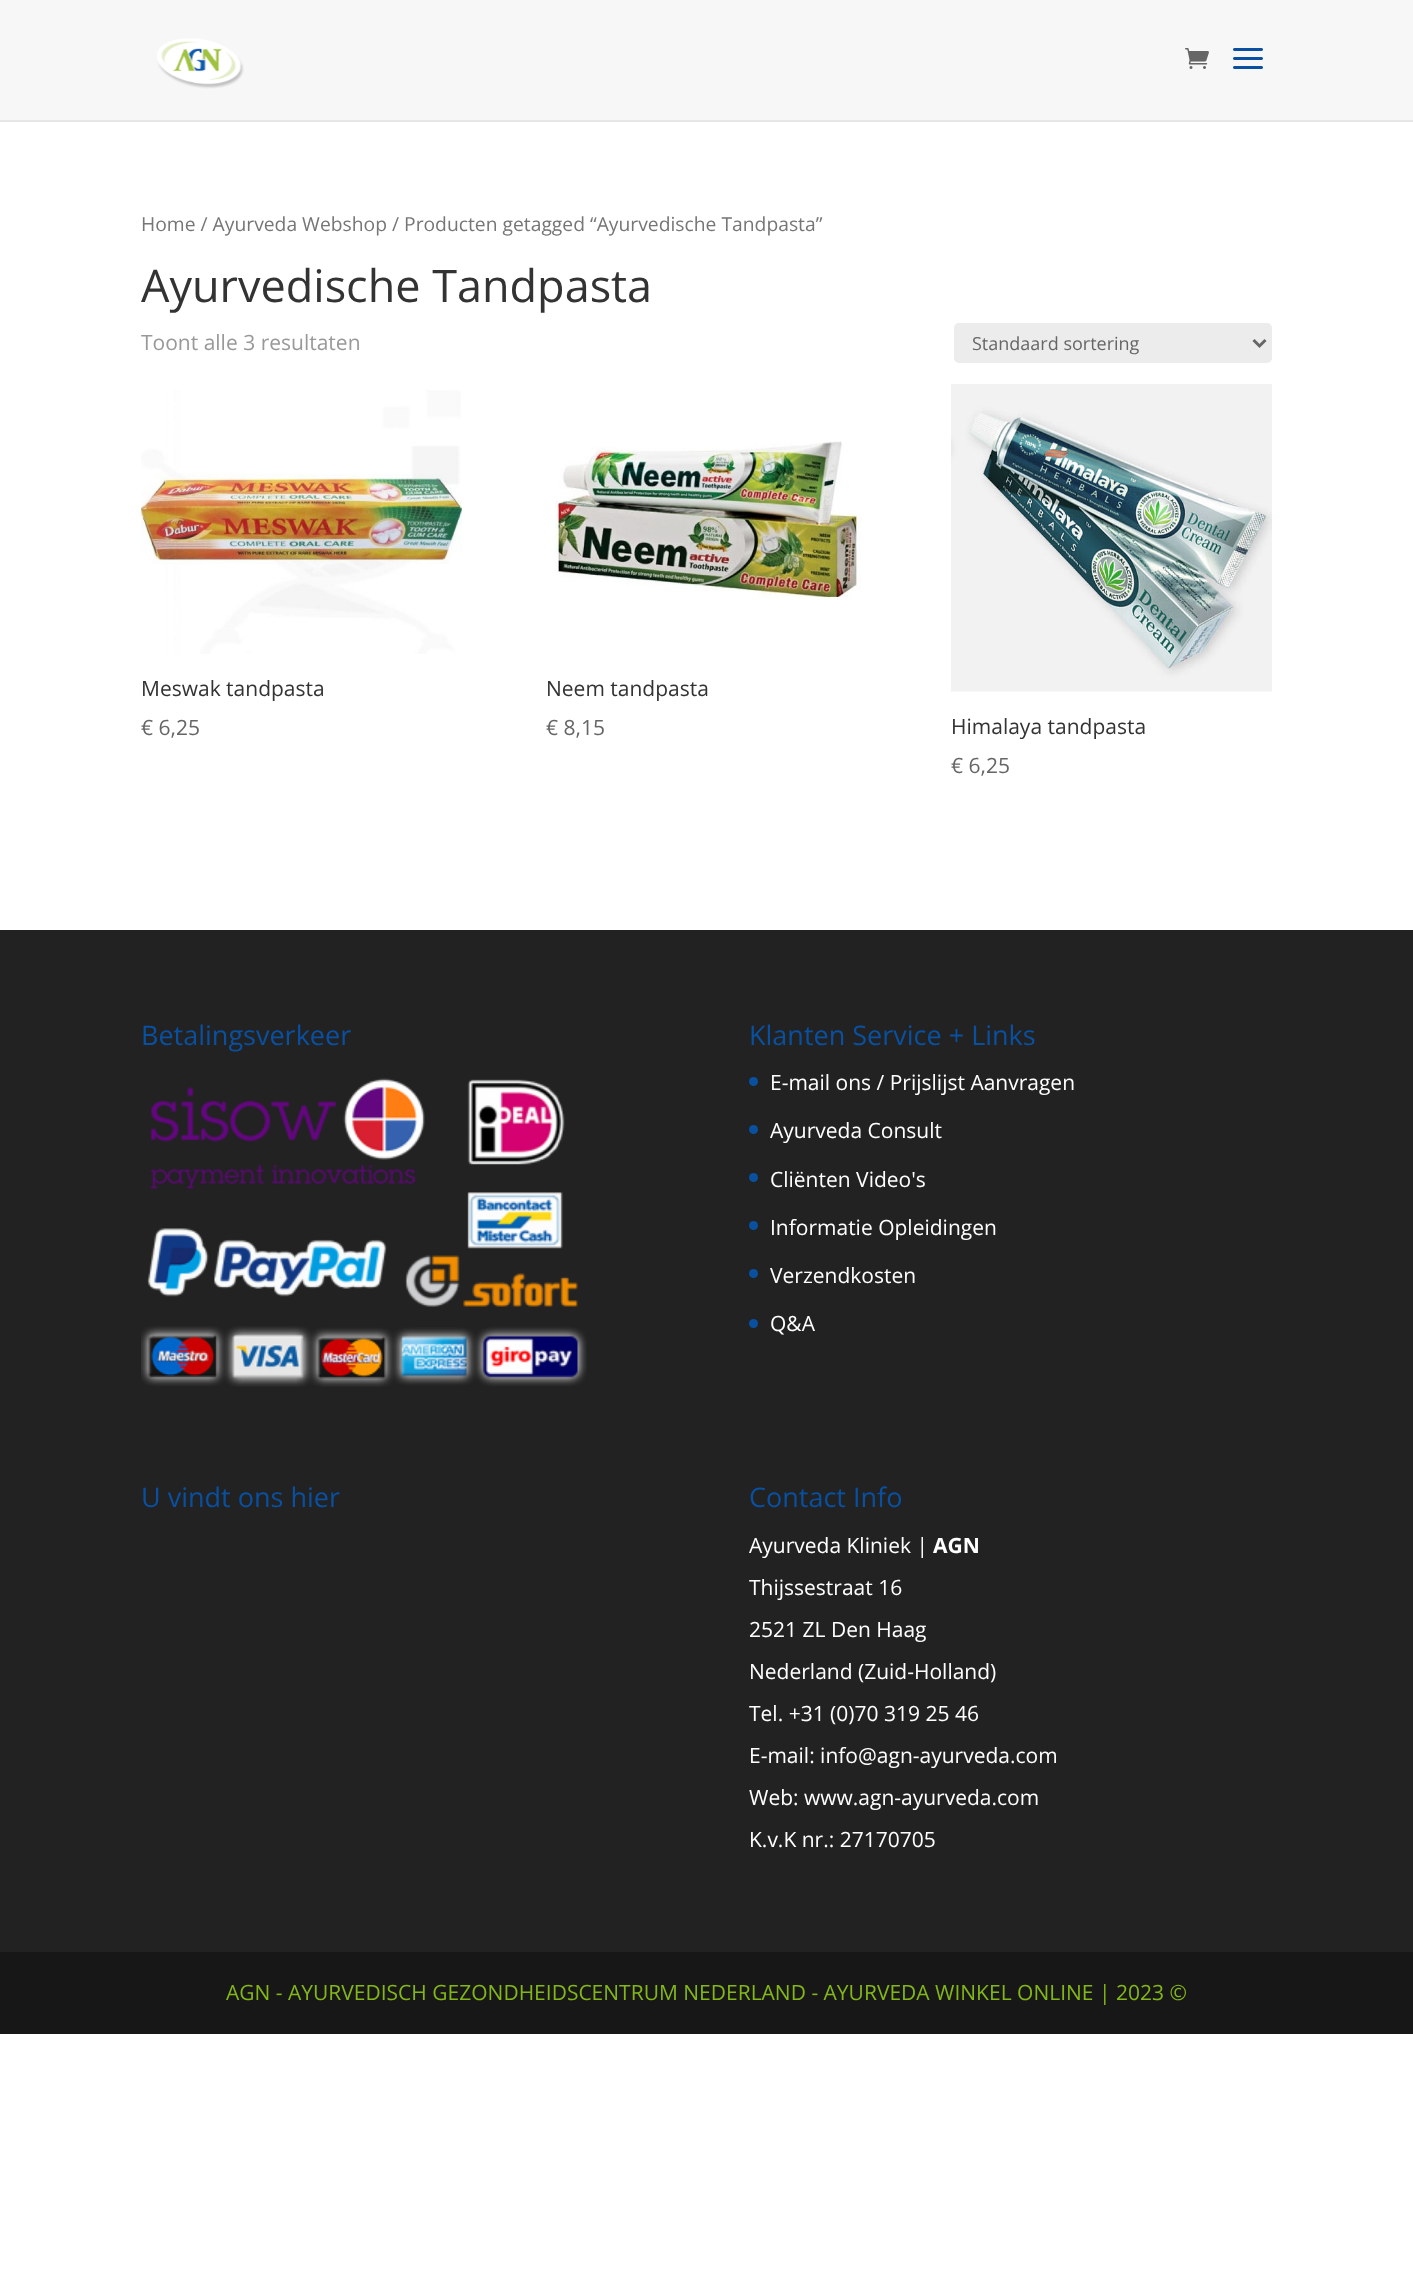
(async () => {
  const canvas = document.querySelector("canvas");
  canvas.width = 1413;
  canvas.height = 2294;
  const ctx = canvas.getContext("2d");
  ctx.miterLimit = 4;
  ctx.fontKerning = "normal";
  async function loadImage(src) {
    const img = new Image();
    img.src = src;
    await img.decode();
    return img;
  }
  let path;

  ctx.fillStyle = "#ffffff";
  ctx.fillRect(0, 0, 1413, 2294);
  ctx.fillStyle = "#e6e6e6";
  ctx.fillRect(0, 120, 1413, 2);
  ctx.fillStyle = "#f7f7f7";
  ctx.fillRect(0, 0, 1413, 120);
  ctx.drawImage(await loadImage("img/1.png"), 157, 38, 87, 51);
  ctx.drawImage(await loadImage("img/2.png"), 1185, 48, 24, 21);
  ctx.drawImage(await loadImage("img/3.png"), 1233, 48, 30, 21);
  ctx.fillStyle = "#ececec";
  ctx.beginPath();
  ctx.roundRect(954, 323, 318, 40, 5);
  ctx.fill();
  path = new Path2D("M1253.5 340L1259.5 346L1265.5 340");
  ctx.strokeStyle = "#666666";
  ctx.lineWidth = 3;
  ctx.stroke(path);
  ctx.drawImage(await loadImage("img/4.png"), 141, 390, 321, 264);
  ctx.drawImage(await loadImage("img/5.png"), 555, 441, 307, 159);
  ctx.drawImage(await loadImage("img/6.png"), 951, 384, 321, 308);
  ctx.fillStyle = "#222222";
  ctx.fillRect(0, 930, 1413, 1022);
  ctx.drawImage(await loadImage("img/7.png"), 141, 1078, 446, 309);
  ctx.fillStyle = "#0950a0";
  ctx.beginPath();
  ctx.arc(753.5, 1081.5, 4.5, 0, Math.PI * 2);
  ctx.fill();
  ctx.beginPath();
  ctx.arc(753.5, 1129.5, 4.5, 0, Math.PI * 2);
  ctx.fill();
  ctx.beginPath();
  ctx.arc(753.5, 1177.5, 4.5, 0, Math.PI * 2);
  ctx.fill();
  ctx.beginPath();
  ctx.arc(753.5, 1225.5, 4.5, 0, Math.PI * 2);
  ctx.fill();
  ctx.beginPath();
  ctx.arc(753.5, 1273.5, 4.5, 0, Math.PI * 2);
  ctx.fill();
  ctx.beginPath();
  ctx.arc(753.5, 1323.5, 4.5, 0, Math.PI * 2);
  ctx.fill();
  ctx.fillStyle = "#171717";
  ctx.fillRect(0, 1952, 1413, 82);
  ctx.font = "19.3px Open Sans";
  ctx.fillStyle = "#767676";
  ctx.fillText("Home / Ayurveda Webshop / Producten getagged “Ayurvedische Tandpasta”", 141, 231);
  ctx.font = "45px Open Sans";
  ctx.fillStyle = "#333333";
  ctx.fillText("Ayurvedische Tandpasta", 141, 302);
  ctx.font = "21px Open Sans";
  ctx.fillStyle = "#999999";
  ctx.fillText("Toont alle 3 resultaten", 141, 350);
  ctx.font = "18px Open Sans";
  ctx.fillStyle = "#666666";
  ctx.fillText("Standaard sortering", 972, 350);
  ctx.font = "21px Open Sans";
  ctx.fillStyle = "#333333";
  ctx.fillText("Meswak tandpasta", 141, 696);
  ctx.fillStyle = "#666666";
  ctx.fillText("€ 6,25", 141, 735);
  ctx.fillStyle = "#333333";
  ctx.fillText("Neem tandpasta", 546, 696);
  ctx.fillStyle = "#666666";
  ctx.fillText("€ 8,15", 546, 735);
  ctx.fillStyle = "#333333";
  ctx.fillText("Himalaya tandpasta", 951, 734);
  ctx.fillStyle = "#666666";
  ctx.fillText("€ 6,25", 951, 773);
  ctx.font = "27px Open Sans";
  ctx.fillStyle = "#0950a0";
  ctx.fillText("Betalingsverkeer", 141, 1045);
  ctx.fillText("Klanten Service + Links", 749, 1045);
  ctx.font = "21px Open Sans";
  ctx.fillStyle = "#ffffff";
  for (const [text, x, y] of [
    ["E-mail ons / Prijslijst Aanvragen", 770, 1090],
    ["Ayurveda Consult", 770, 1138],
    ["Cliënten Video's", 770, 1187],
    ["Informatie Opleidingen", 770, 1235],
    ["Verzendkosten", 770, 1283],
    ["Q&A", 770, 1331],
  ]) {
    ctx.fillText(text, x, y);
  }
  ctx.font = "27px Open Sans";
  ctx.fillStyle = "#0950a0";
  ctx.fillText("U vindt ons hier", 141, 1507);
  ctx.fillText("Contact Info", 749, 1507);
  ctx.font = "21px Open Sans";
  ctx.fillStyle = "#ffffff";
  ctx.fillText("Ayurveda Kliniek |", 749, 1553);
  ctx.font = "bold 21px Open Sans";
  ctx.fillText("AGN", 933, 1553);
  ctx.font = "21px Open Sans";
  for (const [text, x, y] of [
    ["Thijssestraat 16", 749, 1595],
    ["2521 ZL Den Haag", 749, 1637],
    ["Nederland (Zuid-Holland)", 749, 1679],
    ["Tel. +31 (0)70 319 25 46", 749, 1721],
    ["E-mail: info@agn-ayurveda.com", 749, 1763],
    ["Web: www.agn-ayurveda.com", 749, 1805],
    ["K.v.K nr.: 27170705", 749, 1847],
  ]) {
    ctx.fillText(text, x, y);
  }
  ctx.fillStyle = "#82b717";
  ctx.fillText("AGN - AYURVEDISCH GEZONDHEIDSCENTRUM NEDERLAND - AYURVEDA WINKEL ONLINE | 2023 ©", 226, 2000);
})();
